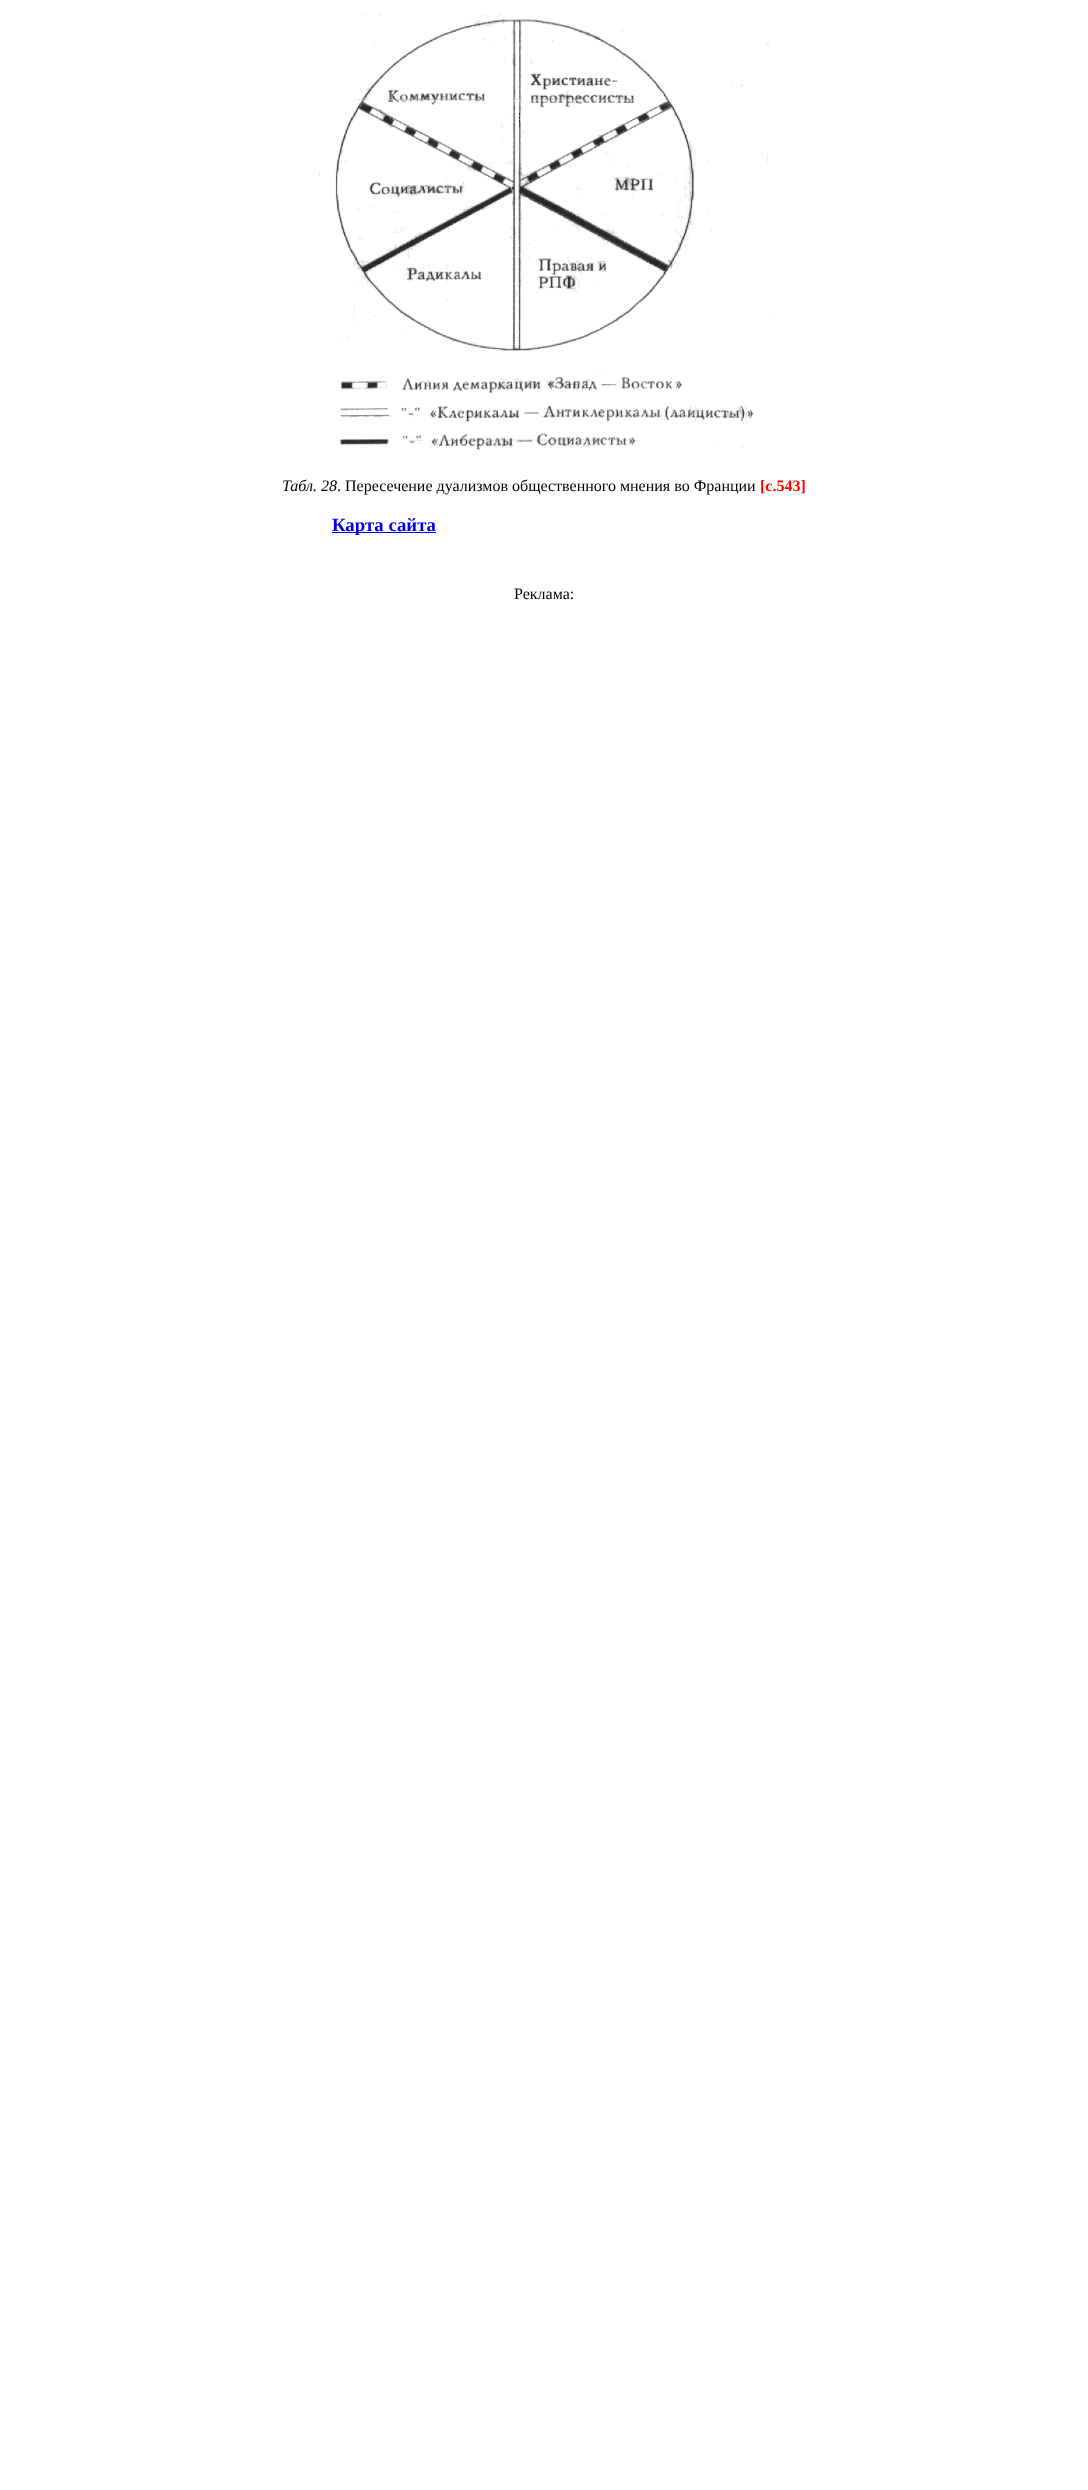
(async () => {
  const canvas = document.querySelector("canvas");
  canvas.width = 1088;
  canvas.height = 2490;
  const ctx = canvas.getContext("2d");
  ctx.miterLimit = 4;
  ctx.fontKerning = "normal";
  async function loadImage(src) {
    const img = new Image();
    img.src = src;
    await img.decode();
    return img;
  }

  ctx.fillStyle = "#ffffff";
  ctx.fillRect(0, 0, 1088, 2490);
  ctx.drawImage(await loadImage("img/1.png"), 319, 13, 450, 445);
  ctx.fillStyle = "#0000ee";
  ctx.fillRect(332, 532, 104, 1);
  ctx.font = "italic 16px Liberation Serif";
  ctx.fillStyle = "#000000";
  ctx.fillText("Табл. 28", 282, 491);
  ctx.font = "16px Liberation Serif";
  ctx.fillText(". Пересечение дуализмов общественного мнения во Франции", 337, 491);
  ctx.font = "bold 16px Liberation Serif";
  ctx.fillStyle = "#ff0000";
  ctx.fillText("[c.543]", 760, 491);
  ctx.font = "bold 18.75px Liberation Serif";
  ctx.fillStyle = "#0000ee";
  ctx.fillText("Карта сайта", 332, 531);
  ctx.font = "16px Liberation Serif";
  ctx.fillStyle = "#000000";
  ctx.fillText("Реклама:", 514, 599);
})();
